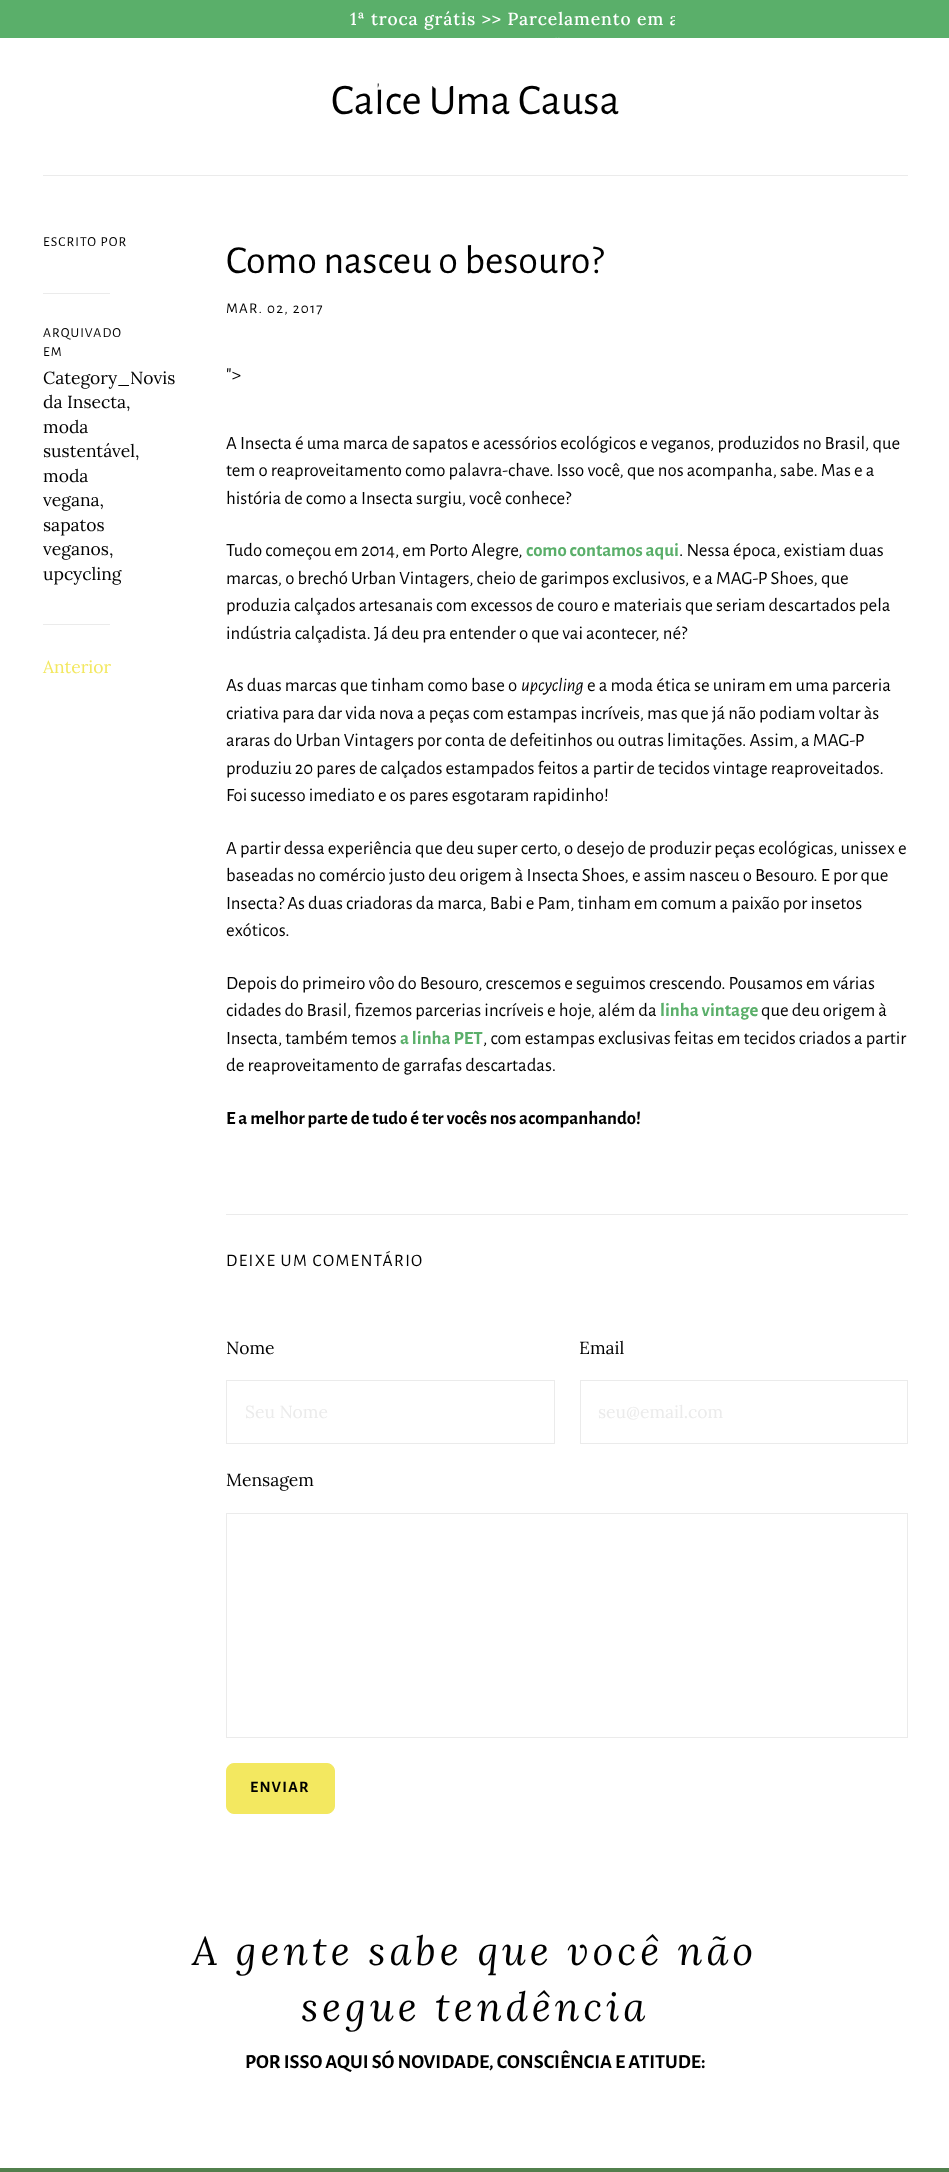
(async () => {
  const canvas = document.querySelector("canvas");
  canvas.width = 949;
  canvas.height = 2172;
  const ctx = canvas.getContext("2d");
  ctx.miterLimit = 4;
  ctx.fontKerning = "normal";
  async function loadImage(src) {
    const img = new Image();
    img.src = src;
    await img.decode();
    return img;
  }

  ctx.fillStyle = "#ffffff";
  ctx.fillRect(0, 0, 949, 2172);
  for (const [x, y, w, h, color] of [
    [0, 0, 949, 38, "#5aaf6a"],
    [43, 175, 865, 1, "#ebebeb"],
    [43, 293, 67, 1, "#ebebeb"],
    [43, 624, 67, 1, "#ebebeb"],
    [226, 1214, 682, 1, "#ebebeb"],
  ]) {
    ctx.fillStyle = color;
    ctx.fillRect(x, y, w, h);
  }
  ctx.strokeStyle = "#ebebeb";
  ctx.strokeRect(226.5, 1380.5, 328, 63);
  ctx.strokeRect(580.5, 1380.5, 327, 63);
  ctx.strokeRect(226.5, 1513.5, 681, 224);
  ctx.fillStyle = "#f3e860";
  ctx.beginPath();
  ctx.roundRect(226.5, 1763.5, 108, 50, 7.5);
  ctx.fill();
  ctx.strokeStyle = "#f3e860";
  ctx.stroke();
  ctx.fillStyle = "#52804e";
  ctx.fillRect(0, 2168, 949, 4);
  ctx.save();
  ctx.beginPath();
  ctx.rect(25, 0, 650, 38);
  ctx.clip();
  ctx.letterSpacing = "0.9px";
  ctx.font = "500 17.5px Lora";
  ctx.fillStyle = "#ffffff";
  ctx.fillText("1ª troca grátis >> Parcelamento em a", 350, 25);
  ctx.restore();
  ctx.font = "43.75px Alegreya Sans";
  ctx.fillStyle = "#000000";
  ctx.fillText("Calce Uma Causa", 331, 114);
  ctx.drawImage(await loadImage("img/1.png"), 377, 37, 183, 53);
  ctx.letterSpacing = "1.1px";
  ctx.font = "13.75px Alegreya Sans";
  for (const [text, x, y] of [
    ["ESCRITO POR", 43, 246],
    ["ARQUIVADO", 43, 337],
    ["EM", 43, 356],
  ]) {
    ctx.fillText(text, x, y);
  }
  ctx.letterSpacing = "0px";
  ctx.font = "17.5px Lora";
  for (const [text, x, y] of [
    ["Category_Novis", 43, 384],
    ["da Insecta,", 43, 408],
    ["moda", 43, 433],
    ["sustentável,", 43, 457],
    ["moda", 43, 482],
    ["vegana,", 43, 506],
    ["sapatos", 43, 531],
    ["veganos,", 43, 555],
    ["upcycling", 43, 580],
  ]) {
    ctx.fillText(text, x, y);
  }
  ctx.fillStyle = "#f3e860";
  ctx.fillText("Anterior", 43, 673);
  ctx.font = "40px Alegreya Sans";
  ctx.fillStyle = "#000000";
  ctx.fillText("Como nasceu o besouro?", 226, 273);
  ctx.letterSpacing = "1.25px";
  ctx.font = "15px Alegreya Sans";
  ctx.fillText("MAR. 02, 2017", 226, 313);
  ctx.letterSpacing = "0px";
  ctx.font = "20px Alegreya Sans";
  ctx.fillText("\">", 226, 381);
  ctx.font = "18.75px Alegreya Sans";
  for (const [text, x, y] of [
    ["A Insecta é uma marca de sapatos e acessórios ecológicos e veganos, produzidos no Brasil, que", 226, 449],
    ["tem o reaproveitamento como palavra-chave. Isso você, que nos acompanha, sabe. Mas e a", 226, 476],
    ["história de como a Insecta surgiu, você conhece?", 226, 504],
    ["Tudo começou em 2014, em Porto Alegre,", 226, 556],
  ]) {
    ctx.fillText(text, x, y);
  }
  ctx.font = "bold 18.75px Alegreya Sans";
  ctx.fillStyle = "#5aaf6a";
  ctx.fillText("como contamos aqui", 526, 556);
  ctx.font = "18.75px Alegreya Sans";
  ctx.fillStyle = "#000000";
  for (const [text, x, y] of [
    [". Nessa época, existiam duas", 679, 556],
    ["marcas, o brechó Urban Vintagers, cheio de garimpos exclusivos, e a MAG-P Shoes, que", 226, 584],
    ["produzia calçados artesanais com excessos de couro e materiais que seriam descartados pela", 226, 611],
    ["indústria calçadista. Já deu pra entender o que vai acontecer, né?", 226, 639],
    ["As duas marcas que tinham como base o", 226, 691],
  ]) {
    ctx.fillText(text, x, y);
  }
  ctx.font = "italic 18.75px Alegreya Sans";
  ctx.fillText("upcycling", 521, 691);
  ctx.font = "18.75px Alegreya Sans";
  for (const [text, x, y] of [
    ["e a moda ética se uniram em uma parceria", 587, 691],
    ["criativa para dar vida nova a peças com estampas incríveis, mas que já não podiam voltar às", 226, 719],
    ["araras do Urban Vintagers por conta de defeitinhos ou outras limitações. Assim, a MAG-P", 226, 746],
    ["produziu 20 pares de calçados estampados feitos a partir de tecidos vintage reaproveitados.", 226, 774],
    ["Foi sucesso imediato e os pares esgotaram rapidinho!", 226, 801],
    ["A partir dessa experiência que deu super certo, o desejo de produzir peças ecológicas, unissex e", 226, 854],
    ["baseadas no comércio justo deu origem à Insecta Shoes, e assim nasceu o Besouro. E por que", 226, 881],
    ["Insecta? As duas criadoras da marca, Babi e Pam, tinham em comum a paixão por insetos", 226, 909],
    ["exóticos.", 226, 936],
    ["Depois do primeiro vôo do Besouro, crescemos e seguimos crescendo. Pousamos em várias", 226, 989],
    ["cidades do Brasil, fizemos parcerias incríveis e hoje, além da", 226, 1016],
  ]) {
    ctx.fillText(text, x, y);
  }
  ctx.font = "bold 18.75px Alegreya Sans";
  ctx.fillStyle = "#5aaf6a";
  ctx.fillText("linha vintage", 660, 1016);
  ctx.font = "18.75px Alegreya Sans";
  ctx.fillStyle = "#000000";
  ctx.fillText("que deu origem à", 761, 1016);
  ctx.fillText("Insecta, também temos", 226, 1044);
  ctx.font = "bold 18.75px Alegreya Sans";
  ctx.fillStyle = "#5aaf6a";
  ctx.fillText("a linha PET", 400, 1044);
  ctx.font = "18.75px Alegreya Sans";
  ctx.fillStyle = "#000000";
  ctx.fillText(", com estampas exclusivas feitas em tecidos criados a partir", 483, 1044);
  ctx.fillText("de reaproveitamento de garrafas descartadas.", 226, 1071);
  ctx.font = "bold 18.75px Alegreya Sans";
  ctx.fillText("E a melhor parte de tudo é ter vocês nos acompanhando!", 226, 1124);
  ctx.letterSpacing = "1.4px";
  ctx.font = "17.5px Alegreya Sans";
  ctx.fillText("DEIXE UM COMENTÁRIO", 226, 1266);
  ctx.letterSpacing = "0px";
  ctx.font = "17.5px Lora";
  ctx.fillText("Nome", 226, 1354);
  ctx.fillStyle = "#ebebeb";
  ctx.fillText("Seu Nome", 245, 1418);
  ctx.fillStyle = "#000000";
  ctx.fillText("Email", 579, 1354);
  ctx.fillStyle = "#ebebeb";
  ctx.fillText("seu@email.com", 598, 1418);
  ctx.fillStyle = "#000000";
  ctx.fillText("Mensagem", 226, 1486);
  ctx.letterSpacing = "1.25px";
  ctx.font = "bold 16px Alegreya Sans";
  ctx.fillText("ENVIAR", 250, 1792);
  ctx.letterSpacing = "4px";
  ctx.font = "italic 40px Lora";
  ctx.fillText("A gente sabe que você não", 192, 1965);
  ctx.fillText("segue tendência", 301, 2021);
  ctx.letterSpacing = "0px";
  ctx.font = "bold 20px Alegreya Sans";
  ctx.fillText("POR ISSO AQUI SÓ NOVIDADE, CONSCIÊNCIA E ATITUDE:", 245, 2068);
})();
